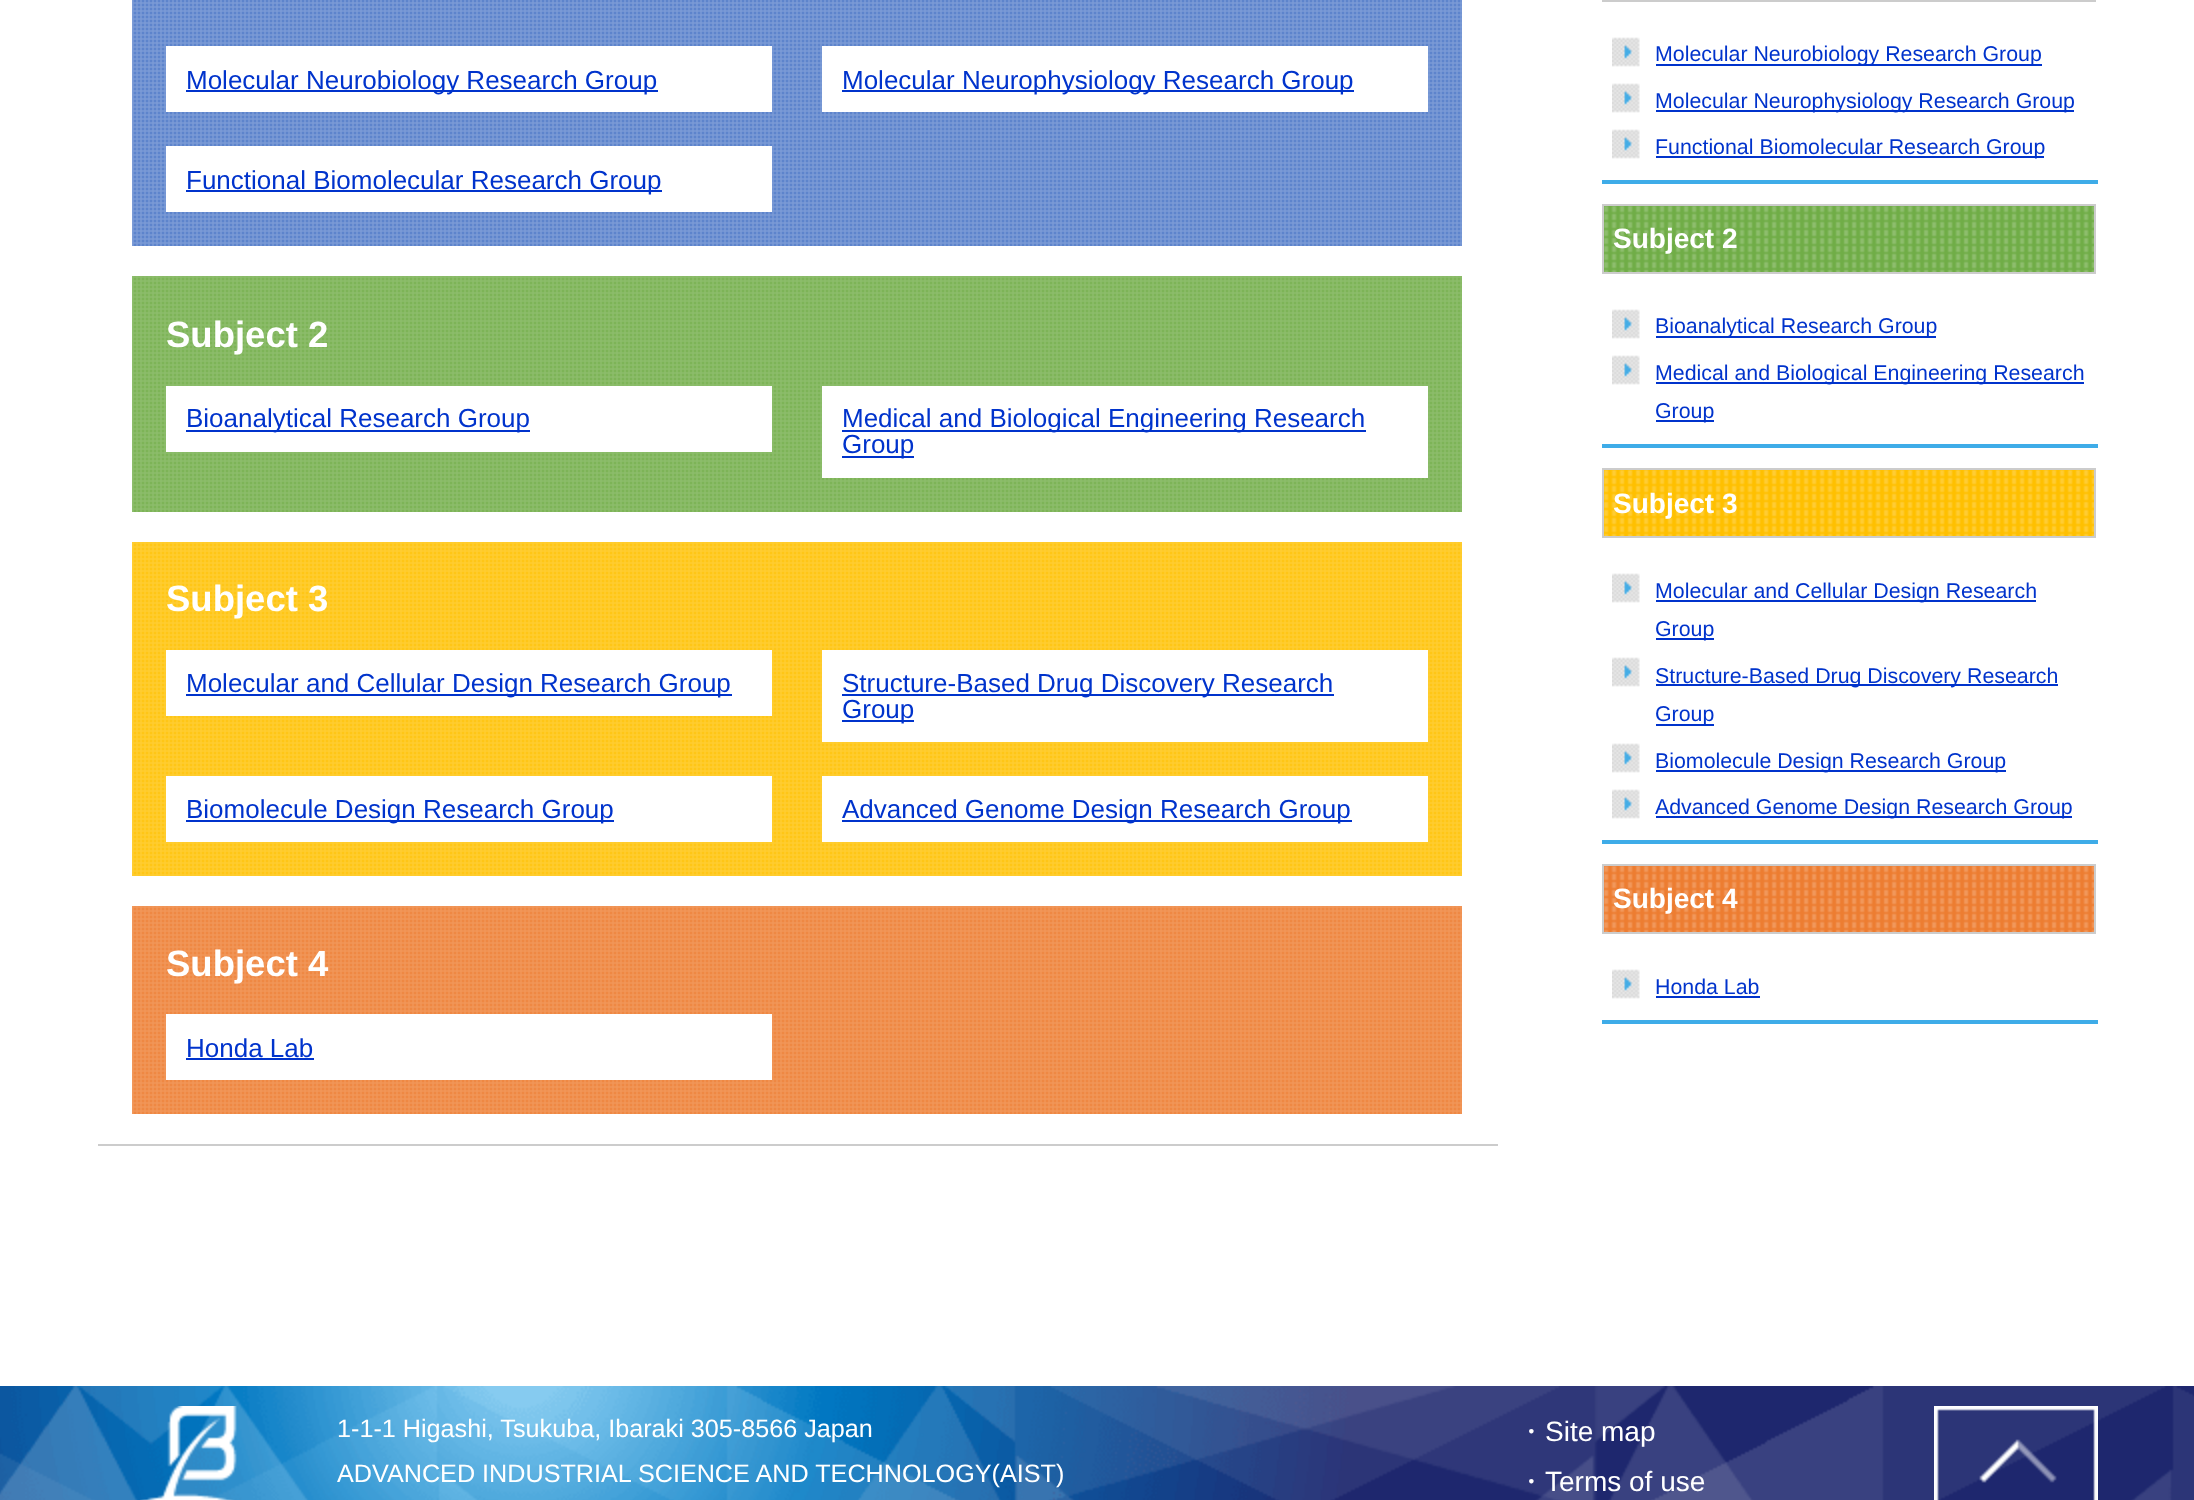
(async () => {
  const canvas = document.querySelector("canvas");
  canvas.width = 2194;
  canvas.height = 1500;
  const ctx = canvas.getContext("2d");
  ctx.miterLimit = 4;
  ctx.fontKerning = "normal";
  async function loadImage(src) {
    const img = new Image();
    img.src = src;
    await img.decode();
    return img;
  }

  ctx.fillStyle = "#ffffff";
  ctx.fillRect(0, 0, 2194, 1500);
  ctx.fillStyle = "#cccccc";
  ctx.fillRect(98, 1144, 1400, 2);
  ctx.drawImage(await loadImage("img/1.png"), 132, 0, 1330, 246);
  for (const [x, y, w, h, color] of [
    [166, 46, 606, 66, "#ffffff"],
    [186, 90, 472, 2, "#0033cc"],
    [822, 46, 606, 66, "#ffffff"],
    [842, 90, 512, 2, "#0033cc"],
    [166, 146, 606, 66, "#ffffff"],
    [186, 190, 476, 2, "#0033cc"],
  ]) {
    ctx.fillStyle = color;
    ctx.fillRect(x, y, w, h);
  }
  ctx.drawImage(await loadImage("img/2.png"), 132, 276, 1330, 236);
  for (const [x, y, w, h, color] of [
    [166, 386, 606, 66, "#ffffff"],
    [186, 430, 344, 2, "#0033cc"],
    [822, 386, 606, 92, "#ffffff"],
    [842, 430, 524, 2, "#0033cc"],
    [842, 456, 72, 2, "#0033cc"],
  ]) {
    ctx.fillStyle = color;
    ctx.fillRect(x, y, w, h);
  }
  ctx.drawImage(await loadImage("img/3.png"), 132, 542, 1330, 334);
  for (const [x, y, w, h, color] of [
    [166, 650, 606, 66, "#ffffff"],
    [186, 694, 546, 2, "#0033cc"],
    [822, 650, 606, 92, "#ffffff"],
    [842, 694, 492, 2, "#0033cc"],
    [842, 720, 72, 2, "#0033cc"],
    [166, 776, 606, 66, "#ffffff"],
    [186, 820, 428, 2, "#0033cc"],
    [822, 776, 606, 66, "#ffffff"],
    [842, 820, 510, 2, "#0033cc"],
  ]) {
    ctx.fillStyle = color;
    ctx.fillRect(x, y, w, h);
  }
  ctx.drawImage(await loadImage("img/4.png"), 132, 906, 1330, 208);
  ctx.fillStyle = "#ffffff";
  ctx.fillRect(166, 1014, 606, 66);
  ctx.fillStyle = "#0033cc";
  ctx.fillRect(186, 1058, 128, 2);
  ctx.strokeStyle = "#cccccc";
  ctx.lineWidth = 2;
  ctx.strokeRect(1603, -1, 492, 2);
  ctx.fillStyle = "#3eace8";
  ctx.fillRect(1602, 180, 496, 4);
  ctx.drawImage(await loadImage("img/5.png"), 1612, 37, 28, 30);
  ctx.fillStyle = "#0033cc";
  ctx.fillRect(1656, 64, 386, 2);
  ctx.drawImage(await loadImage("img/5.png"), 1612, 83, 28, 30);
  ctx.fillRect(1656, 110, 418, 2);
  ctx.drawImage(await loadImage("img/5.png"), 1612, 129, 28, 30);
  ctx.fillRect(1656, 156, 388, 2);
  ctx.drawImage(await loadImage("img/6.png"), 1604, 206, 490, 66);
  ctx.strokeRect(1603, 205, 492, 68);
  ctx.fillStyle = "#3eace8";
  ctx.fillRect(1602, 444, 496, 4);
  ctx.drawImage(await loadImage("img/5.png"), 1612, 309, 28, 30);
  ctx.fillStyle = "#0033cc";
  ctx.fillRect(1656, 336, 280, 2);
  ctx.drawImage(await loadImage("img/5.png"), 1612, 355, 28, 30);
  ctx.fillRect(1656, 382, 428, 2);
  ctx.fillRect(1656, 420, 58, 2);
  ctx.drawImage(await loadImage("img/7.png"), 1604, 470, 490, 66);
  ctx.strokeRect(1603, 469, 492, 68);
  ctx.fillStyle = "#3eace8";
  ctx.fillRect(1602, 840, 496, 4);
  ctx.drawImage(await loadImage("img/5.png"), 1612, 573, 28, 30);
  ctx.fillStyle = "#0033cc";
  ctx.fillRect(1656, 600, 380, 2);
  ctx.fillRect(1656, 638, 58, 2);
  ctx.drawImage(await loadImage("img/5.png"), 1612, 657, 28, 30);
  ctx.fillRect(1656, 684, 402, 2);
  ctx.fillRect(1656, 724, 58, 2);
  ctx.drawImage(await loadImage("img/5.png"), 1612, 743, 28, 30);
  ctx.fillRect(1656, 770, 350, 2);
  ctx.drawImage(await loadImage("img/5.png"), 1612, 789, 28, 30);
  ctx.fillRect(1656, 816, 416, 2);
  ctx.drawImage(await loadImage("img/8.png"), 1604, 866, 490, 66);
  ctx.strokeRect(1603, 865, 492, 68);
  ctx.fillStyle = "#3eace8";
  ctx.fillRect(1602, 1020, 496, 4);
  ctx.drawImage(await loadImage("img/5.png"), 1612, 969, 28, 30);
  ctx.fillStyle = "#0033cc";
  ctx.fillRect(1656, 996, 104, 2);
  ctx.drawImage(await loadImage("img/9.png"), 0, 1386, 2194, 114);
  ctx.drawImage(await loadImage("img/10.png"), 140, 1406, 97, 94);
  ctx.drawImage(await loadImage("img/11.png"), 1934, 1406, 164, 94);
  ctx.font = "26px Liberation Sans";
  for (const [text, x, y] of [
    ["Molecular Neurobiology Research Group", 186, 89],
    ["Molecular Neurophysiology Research Group", 842, 89],
    ["Functional Biomolecular Research Group", 186, 189],
  ]) {
    ctx.fillText(text, x, y);
  }
  ctx.font = "bold 36.5px Liberation Sans";
  ctx.fillStyle = "#ffffff";
  ctx.fillText("Subject 2", 166, 347);
  ctx.font = "26px Liberation Sans";
  ctx.fillStyle = "#0033cc";
  for (const [text, x, y] of [
    ["Bioanalytical Research Group", 186, 427],
    ["Medical and Biological Engineering Research", 842, 427],
    ["Group", 842, 453],
  ]) {
    ctx.fillText(text, x, y);
  }
  ctx.font = "bold 36.5px Liberation Sans";
  ctx.fillStyle = "#ffffff";
  ctx.fillText("Subject 3", 166, 611);
  ctx.font = "26px Liberation Sans";
  ctx.fillStyle = "#0033cc";
  for (const [text, x, y] of [
    ["Molecular and Cellular Design Research Group", 186, 692],
    ["Structure-Based Drug Discovery Research", 842, 692],
    ["Group", 842, 718],
    ["Biomolecule Design Research Group", 186, 818],
    ["Advanced Genome Design Research Group", 842, 818],
  ]) {
    ctx.fillText(text, x, y);
  }
  ctx.font = "bold 36.5px Liberation Sans";
  ctx.fillStyle = "#ffffff";
  ctx.fillText("Subject 4", 166, 976);
  ctx.font = "26px Liberation Sans";
  ctx.fillStyle = "#0033cc";
  ctx.fillText("Honda Lab", 186, 1057);
  ctx.font = "21.35px Liberation Sans";
  for (const [text, x, y] of [
    ["Molecular Neurobiology Research Group", 1655, 61],
    ["Molecular Neurophysiology Research Group", 1655, 108],
    ["Functional Biomolecular Research Group", 1655, 154],
  ]) {
    ctx.fillText(text, x, y);
  }
  ctx.font = "bold 28px Liberation Sans";
  ctx.fillStyle = "#ffffff";
  ctx.fillText("Subject 2", 1613, 248);
  ctx.font = "21.35px Liberation Sans";
  ctx.fillStyle = "#0033cc";
  for (const [text, x, y] of [
    ["Bioanalytical Research Group", 1655, 333],
    ["Medical and Biological Engineering Research", 1655, 380],
    ["Group", 1655, 418],
  ]) {
    ctx.fillText(text, x, y);
  }
  ctx.font = "bold 28px Liberation Sans";
  ctx.fillStyle = "#ffffff";
  ctx.fillText("Subject 3", 1613, 513);
  ctx.font = "21.35px Liberation Sans";
  ctx.fillStyle = "#0033cc";
  for (const [text, x, y] of [
    ["Molecular and Cellular Design Research", 1655, 598],
    ["Group", 1655, 636],
    ["Structure-Based Drug Discovery Research", 1655, 683],
    ["Group", 1655, 721],
    ["Biomolecule Design Research Group", 1655, 768],
    ["Advanced Genome Design Research Group", 1655, 814],
  ]) {
    ctx.fillText(text, x, y);
  }
  ctx.font = "bold 28px Liberation Sans";
  ctx.fillStyle = "#ffffff";
  ctx.fillText("Subject 4", 1613, 908);
  ctx.font = "21.35px Liberation Sans";
  ctx.fillStyle = "#0033cc";
  ctx.fillText("Honda Lab", 1655, 994);
  ctx.font = "25.2px Liberation Sans";
  ctx.fillStyle = "#ffffff";
  ctx.fillText("1-1-1 Higashi, Tsukuba, Ibaraki 305-8566 Japan", 337, 1437);
  ctx.fillText("ADVANCED INDUSTRIAL SCIENCE AND TECHNOLOGY(AIST)", 337, 1482);
  ctx.font = "500 28px WenQuanYi Zen Hei";
  ctx.fillText("・", 1517, 1441);
  ctx.font = "28px Liberation Sans";
  ctx.fillText("Site map", 1545, 1441);
  ctx.font = "500 28px WenQuanYi Zen Hei";
  ctx.fillText("・", 1517, 1491);
  ctx.font = "28px Liberation Sans";
  ctx.fillText("Terms of use", 1545, 1491);
})();
